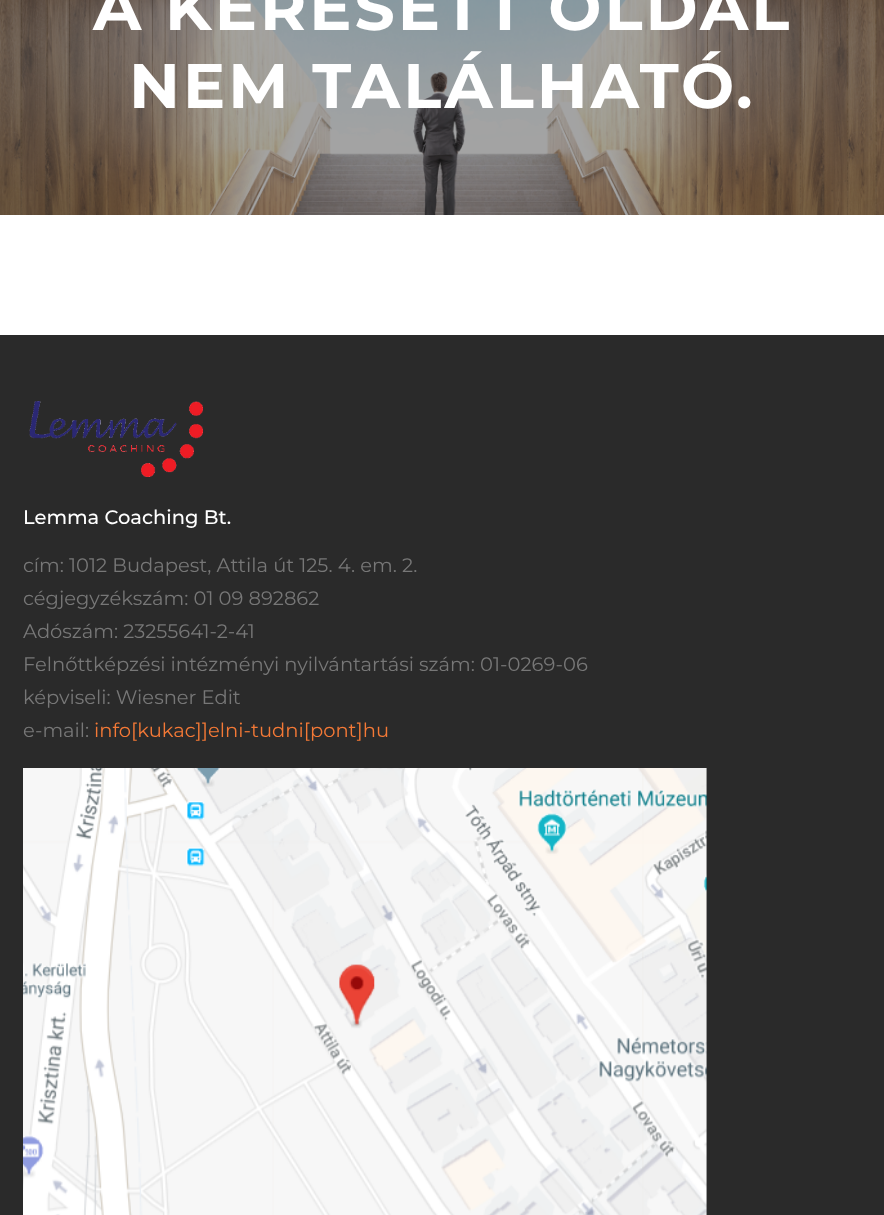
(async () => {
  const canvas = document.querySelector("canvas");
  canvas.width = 884;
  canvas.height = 1215;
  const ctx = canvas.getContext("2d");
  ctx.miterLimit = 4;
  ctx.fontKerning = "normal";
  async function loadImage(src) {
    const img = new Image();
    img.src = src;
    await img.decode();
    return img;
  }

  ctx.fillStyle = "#ffffff";
  ctx.fillRect(0, 0, 884, 1215);
  ctx.drawImage(await loadImage("img/1.png"), 0, 0, 884, 215);
  ctx.fillStyle = "#2a2a2a";
  ctx.fillRect(0, 335, 884, 880);
  ctx.drawImage(await loadImage("img/2.png"), 29, 401, 174, 76);
  ctx.drawImage(await loadImage("img/3.png"), 23, 768, 684, 447);
  ctx.letterSpacing = "3px";
  ctx.font = "bold 63px Montserrat";
  ctx.fillStyle = "#ffffff";
  ctx.fillText("A KERESETT OLDAL", 93, 30);
  ctx.fillText("NEM TALÁLHATÓ.", 129, 108);
  ctx.letterSpacing = "0px";
  ctx.font = "500 19.5px Montserrat";
  ctx.fillText("Lemma Coaching Bt.", 23, 524);
  ctx.font = "19.5px Montserrat";
  ctx.fillStyle = "#777777";
  for (const [text, x, y] of [
    ["cím: 1012 Budapest, Attila út 125. 4. em. 2.", 23, 572],
    ["cégjegyzékszám: 01 09 892862", 23, 605],
    ["Adószám: 23255641-2-41", 23, 638],
    ["Felnőttképzési intézményi nyilvántartási szám: 01-0269-06", 23, 671],
    ["képviseli: Wiesner Edit", 23, 704],
    ["e-mail:", 23, 737],
  ]) {
    ctx.fillText(text, x, y);
  }
  ctx.fillStyle = "#f47936";
  ctx.fillText("info[kukac]]elni-tudni[pont]hu", 94, 737);
})();
